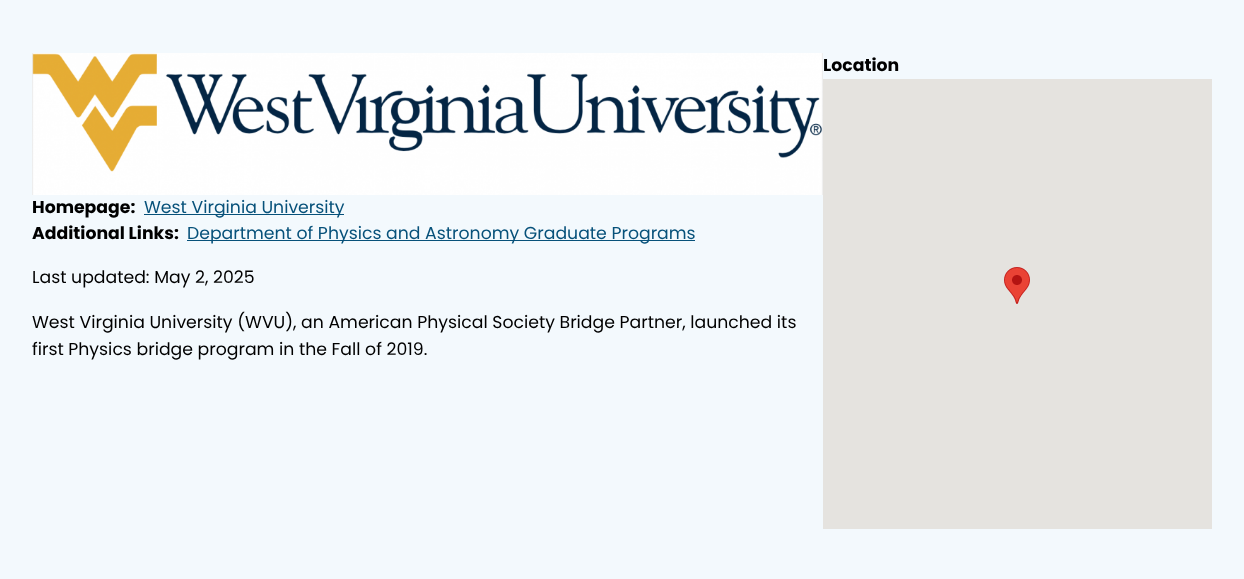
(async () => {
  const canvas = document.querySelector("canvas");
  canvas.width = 1244;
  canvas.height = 579;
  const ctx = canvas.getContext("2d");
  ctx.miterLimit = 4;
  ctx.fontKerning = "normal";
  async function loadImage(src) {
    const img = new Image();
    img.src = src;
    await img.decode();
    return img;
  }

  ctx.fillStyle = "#f3f9fd";
  ctx.fillRect(0, 0, 1244, 579);
  ctx.fillStyle = "#e5e3df";
  ctx.fillRect(823, 79, 389, 450);
  ctx.drawImage(await loadImage("img/1.png"), 1004, 267, 26, 37);
  ctx.drawImage(await loadImage("img/2.png"), 32, 53, 791, 142);
  ctx.fillStyle = "#07517a";
  ctx.fillRect(144, 214, 200, 1);
  ctx.fillRect(187, 240, 508, 1);
  ctx.font = "bold 17.3px Poppins";
  ctx.fillStyle = "#000000";
  ctx.fillText("Location", 823, 71);
  ctx.fillText("Homepage:", 32, 213);
  ctx.font = "17.3px Poppins";
  ctx.fillStyle = "#07517a";
  ctx.fillText("West Virginia University", 144, 213);
  ctx.font = "bold 17.3px Poppins";
  ctx.fillStyle = "#000000";
  ctx.fillText("Additional Links:", 32, 239);
  ctx.font = "17.3px Poppins";
  ctx.fillStyle = "#07517a";
  ctx.fillText("Department of Physics and Astronomy Graduate Programs", 187, 239);
  ctx.fillStyle = "#000000";
  for (const [text, x, y] of [
    ["Last updated: May 2, 2025", 32, 283],
    ["West Virginia University (WVU), an American Physical Society Bridge Partner, launched its", 32, 328],
    ["first Physics bridge program in the Fall of 2019.", 32, 355],
  ]) {
    ctx.fillText(text, x, y);
  }
})();
